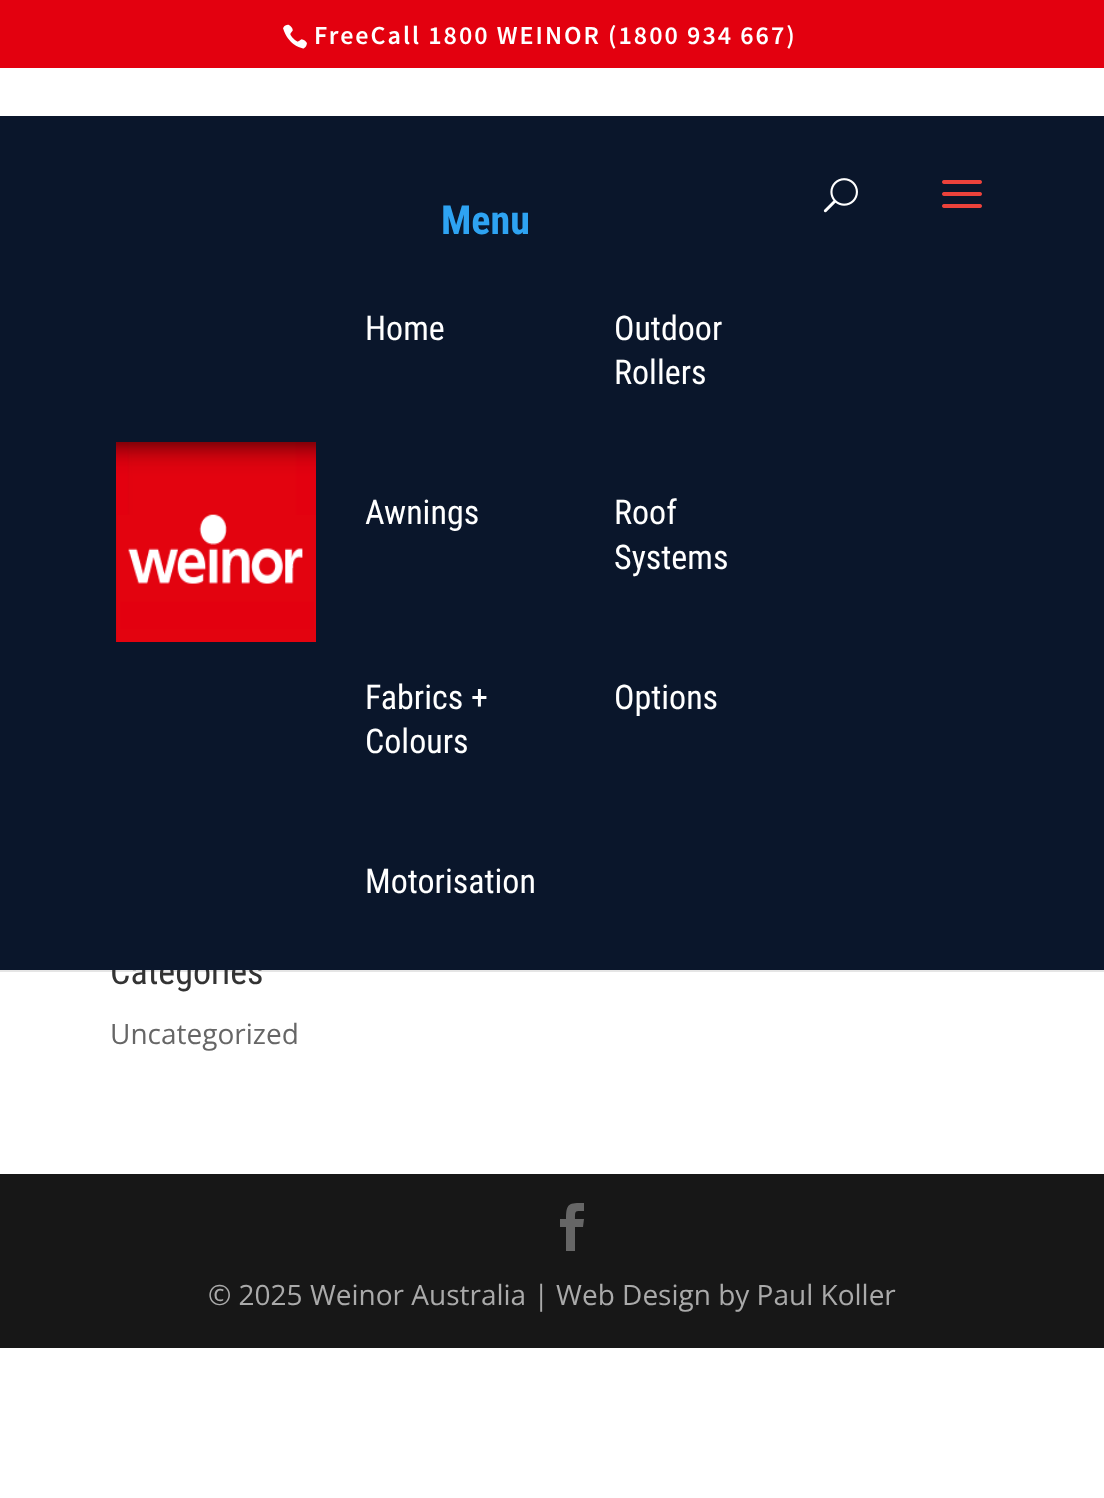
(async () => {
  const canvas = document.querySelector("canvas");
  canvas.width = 1104;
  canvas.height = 1498;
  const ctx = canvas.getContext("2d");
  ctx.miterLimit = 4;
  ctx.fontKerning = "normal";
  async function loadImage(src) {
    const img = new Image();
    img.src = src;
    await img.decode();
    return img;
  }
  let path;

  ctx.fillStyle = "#ffffff";
  ctx.fillRect(0, 0, 1104, 1498);
  ctx.fillStyle = "#e3000f";
  ctx.fillRect(0, 0, 1104, 68);
  ctx.drawImage(await loadImage("img/1.png"), 283, 24, 24, 25);
  ctx.fillStyle = "rgba(0, 0, 0, 0.1)";
  ctx.fillRect(0, 970, 1104, 2);
  ctx.fillStyle = "#171717";
  ctx.fillRect(0, 1174, 1104, 174);
  ctx.fillStyle = "#666666";
  path = new Path2D("M566 1251H575V1227H583L584 1219H575C575 1210 575 1211 584 1211V1203C569 1203 566 1203 566 1219H560V1227H566Z");
  ctx.fill(path);
  ctx.letterSpacing = "2px";
  ctx.font = "600 26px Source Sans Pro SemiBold";
  ctx.fillStyle = "#ffffff";
  ctx.fillText("FreeCall 1800 WEINOR (1800 934 667)", 314, 44);
  ctx.letterSpacing = "0px";
  ctx.font = "36px Roboto Condensed";
  ctx.fillStyle = "#333333";
  ctx.fillText("Categories", 110, 984);
  ctx.fillStyle = "#0a162b";
  ctx.fillRect(0, 116, 1104, 854);
  ctx.font = "34px Roboto Condensed";
  ctx.fillStyle = "#ffffff";
  for (const [text, x, y] of [
    ["Motorisation", 365, 893],
    ["Options", 614, 709],
    ["Colours", 365, 753],
    ["Fabrics +", 365, 709],
    ["Systems", 614, 569],
    ["Roof", 614, 524],
    ["Awnings", 365, 524],
    ["Rollers", 614, 384],
    ["Outdoor", 614, 340],
    ["Home", 365, 340],
  ]) {
    ctx.fillText(text, x, y);
  }
  ctx.drawImage(await loadImage("img/4.png"), 942, 180, 40, 28);
  ctx.drawImage(await loadImage("img/3.png"), 823, 178, 35, 35);
  ctx.drawImage(await loadImage("img/2.png"), 116, 442, 200, 200);
  ctx.font = "bold 40px Roboto Condensed";
  ctx.fillStyle = "#2ea3f2";
  ctx.fillText("Menu", 441, 234);
  ctx.font = "28px Open Sans";
  ctx.fillStyle = "#666666";
  ctx.fillText("Uncategorized", 110, 1044);
  ctx.fillStyle = "#aaaaaa";
  ctx.fillText("© 2025 Weinor Australia | Web Design by Paul Koller", 208, 1305);
})();
